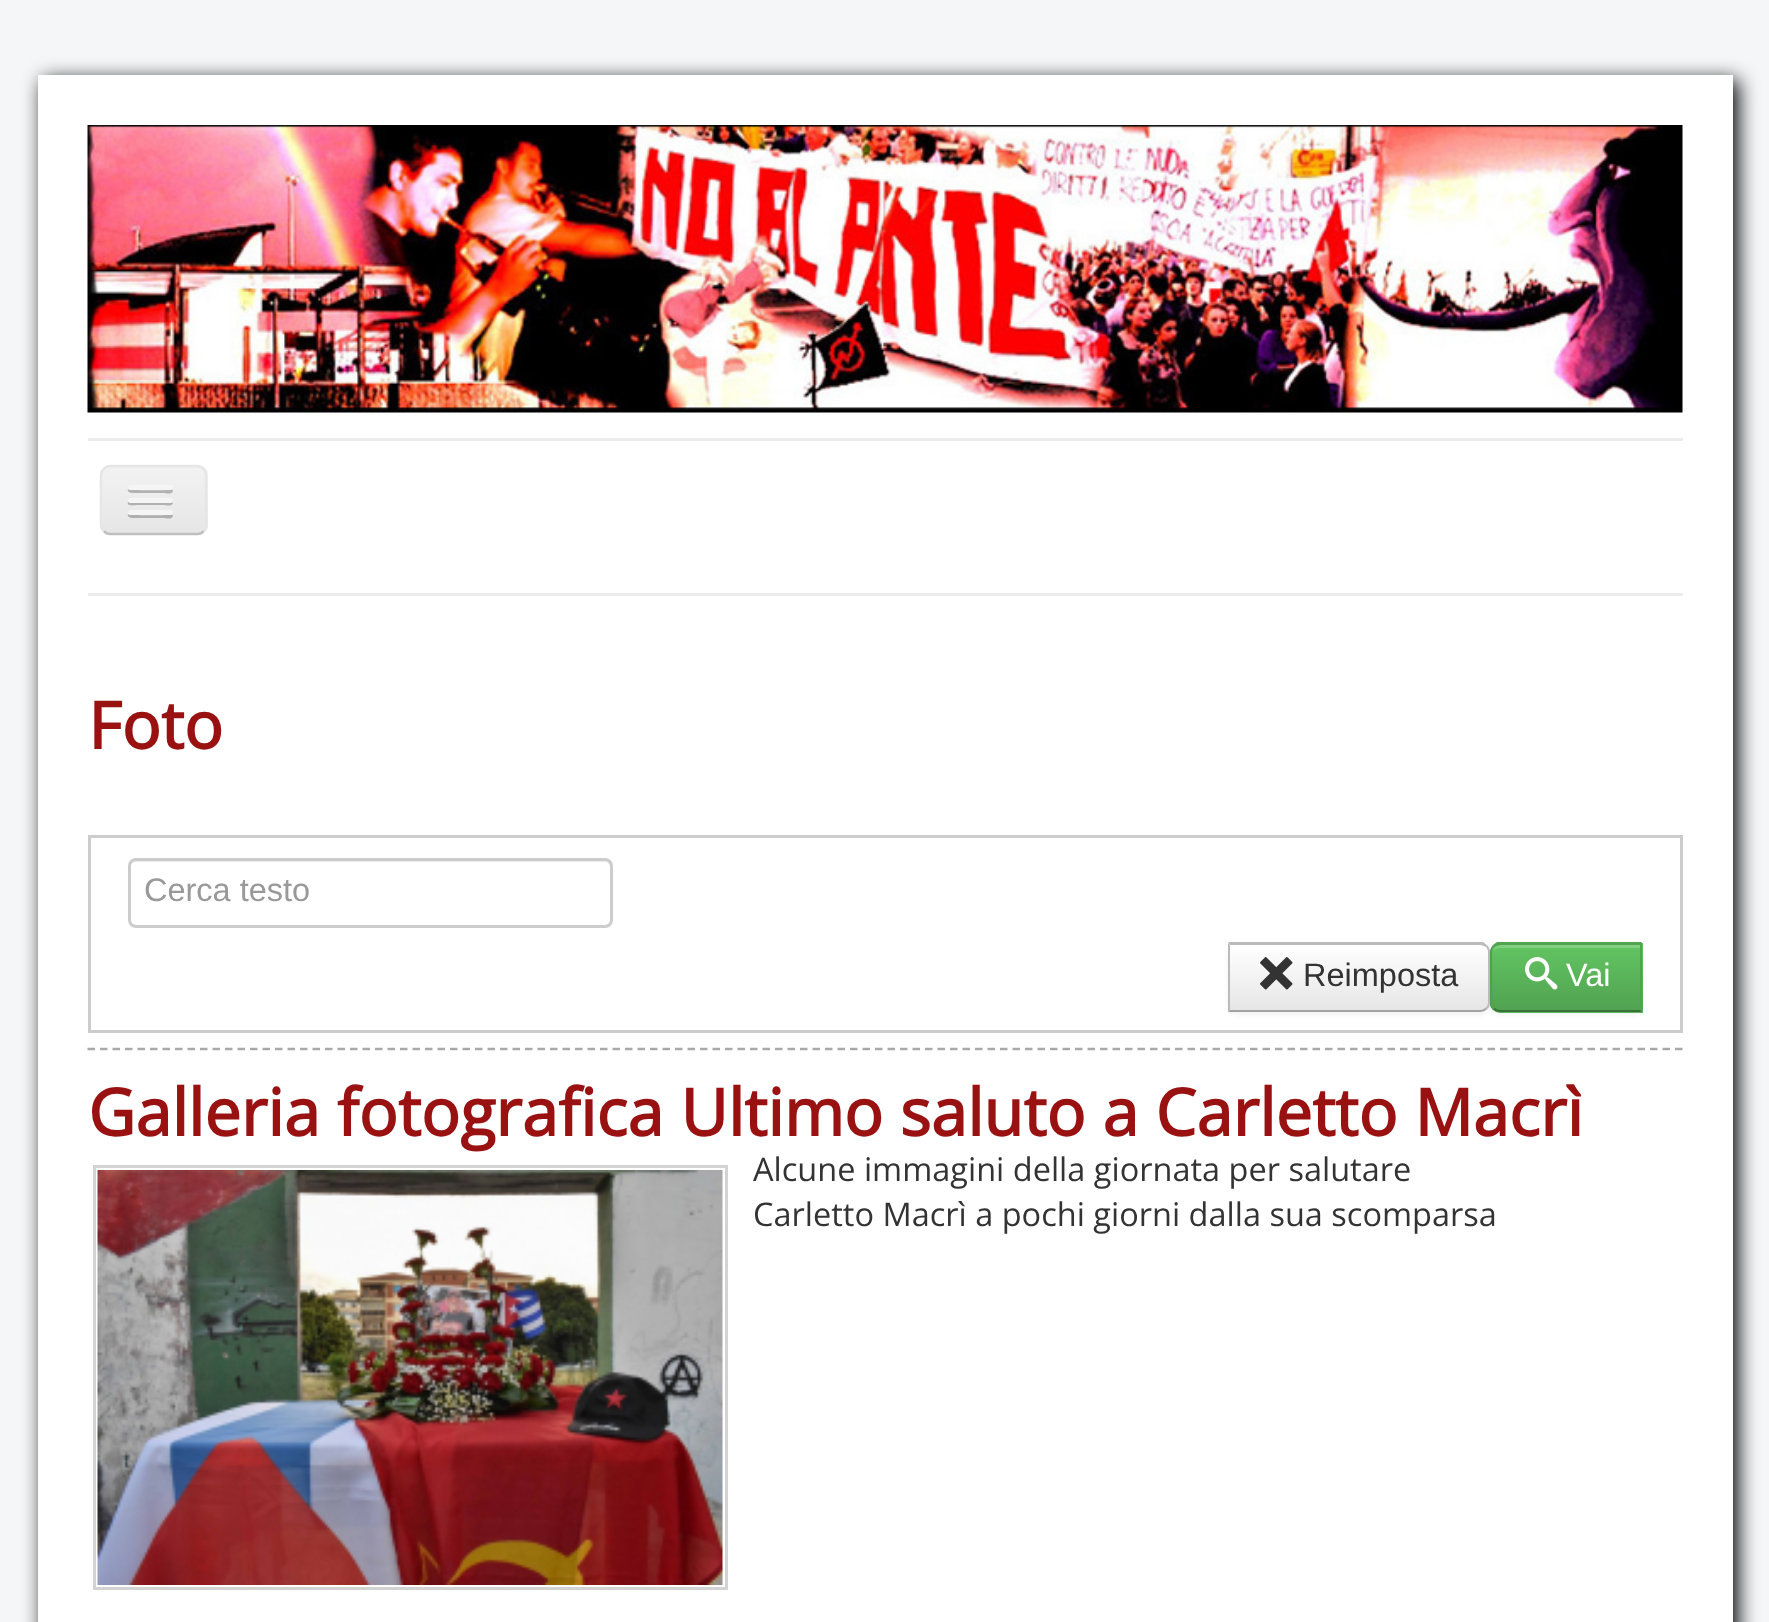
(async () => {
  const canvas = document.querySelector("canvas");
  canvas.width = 1769;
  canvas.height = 1622;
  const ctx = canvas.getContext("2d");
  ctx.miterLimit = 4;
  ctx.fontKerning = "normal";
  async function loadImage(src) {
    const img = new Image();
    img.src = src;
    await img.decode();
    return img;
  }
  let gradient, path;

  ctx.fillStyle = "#f4f6f7";
  ctx.fillRect(0, 0, 1769, 1622);
  ctx.fillStyle = "#000000";
  ctx.filter = "blur(10px)";
  ctx.beginPath();
  ctx.rect(43, 80, 1695, 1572);
  ctx.fill();
  ctx.filter = "none";
  ctx.fillStyle = "#ffffff";
  ctx.fillRect(38, 75, 1695, 1547);
  ctx.drawImage(await loadImage("img/1.png"), 87, 125, 1596, 288);
  ctx.fillStyle = "#ececec";
  ctx.fillRect(88, 438, 1595, 3);
  ctx.fillRect(88, 593, 1595, 3);
  ctx.fillStyle = "#ededed";
  ctx.beginPath();
  ctx.roundRect(100, 465, 108, 70, 10);
  ctx.fill();
  ctx.save();
  ctx.beginPath();
  ctx.roundRect(100, 465, 108, 70, 10);
  ctx.clip();
  gradient = ctx.createLinearGradient(154, 468, 154, 533);
  gradient.addColorStop(0, "#f2f2f2");
  gradient.addColorStop(1, "#e6e6e6");
  ctx.fillStyle = gradient;
  ctx.fillRect(100, 468, 108, 65);
  ctx.restore();
  path = new Path2D("M203.5 531C202 533 200 534 197.5 534H110C107.5 534 105.5 533 104 531");
  ctx.strokeStyle = "#bfbfbf";
  ctx.lineWidth = 2.5;
  ctx.stroke(path);
  path = new Path2D("M104 531C102 529.5 101 527.5 101 525V475C101 472.5 102 470.5 104 469C105.5 467 107.5 466 110 466H197.5C200 466 202 467 203.5 469C205.5 470.5 206 472.5 206 475V525C206 527.5 205.5 529.5 203.5 531");
  ctx.strokeStyle = "#e6e6e6";
  ctx.stroke(path);
  ctx.fillStyle = "#b2b2b2";
  path = new Path2D("M128 489C126 494 137 493 137 493H164C165 493 172 495 173 491L172 489L170 490C167 490 130 491 128 489Z");
  ctx.fill(path);
  ctx.fillStyle = "#f5f5f5";
  ctx.beginPath();
  ctx.roundRect(128, 485, 45, 5, 2.5);
  ctx.fill();
  ctx.fillStyle = "#b1b1b1";
  path = new Path2D("M128 502C126 507 136 505 137 505H164C165 505 172 507 173 503L172 501L170 502H130Z");
  ctx.fill(path);
  ctx.fillStyle = "#f5f5f5";
  ctx.beginPath();
  ctx.roundRect(128, 498, 45, 5, 2.5);
  ctx.fill();
  ctx.fillStyle = "#afafaf";
  path = new Path2D("M128 514C126 519 137 518 137 518H164C165 518 172 520 173 516L172 514L170 515C167 515 130 516 128 514Z");
  ctx.fill(path);
  ctx.fillStyle = "#f5f5f5";
  ctx.beginPath();
  ctx.roundRect(128, 510, 45, 5, 2.5);
  ctx.fill();
  ctx.strokeStyle = "#cccccc";
  ctx.lineWidth = 3;
  ctx.strokeRect(89.5, 836.5, 1592, 195);
  ctx.fillStyle = "#ececec";
  path = new Path2D("M135 862H605C608 862 610 865 610 868C610 864 610 860 605 860H135C130 860 130 864 130 868C130 865 132 862 135 862Z");
  ctx.fill(path);
  ctx.beginPath();
  ctx.roundRect(129.5, 859.5, 482, 67, 6.5);
  ctx.stroke();
  ctx.fillStyle = "rgba(0, 0, 0, 0.05)";
  ctx.filter = "blur(2.5px)";
  ctx.beginPath();
  ctx.roundRect(1490, 945, 153, 70, 10);
  ctx.fill();
  ctx.filter = "none";
  ctx.fillStyle = "#5bb75b";
  ctx.beginPath();
  ctx.roundRect(1490, 943, 153, 70, [10, 0, 0, 10]);
  ctx.fill();
  ctx.save();
  ctx.beginPath();
  ctx.roundRect(1490, 943, 153, 70, [10, 0, 0, 10]);
  ctx.clip();
  gradient = ctx.createLinearGradient(1566, 945, 1566, 1010);
  gradient.addColorStop(0, "#62c462");
  gradient.addColorStop(1, "#51a351");
  ctx.fillStyle = gradient;
  ctx.fillRect(1490, 945, 153, 65);
  ctx.restore();
  ctx.fillStyle = "#81cf81";
  path = new Path2D("M1500 948H1640V945H1501C1497 945 1494 948 1493 951C1495 949 1497 948 1500 948Z");
  ctx.fill(path);
  ctx.fillStyle = "#51a351";
  path = new Path2D("M1500 945C1498 945 1496 946 1494 947L1493 945L1497 942H1642L1640 945Z");
  ctx.fill(path);
  path = new Path2D("M1642 943V1012L1640 1010V945Z");
  ctx.fill(path);
  ctx.fillStyle = "#387038";
  path = new Path2D("M1642 1012L1640 1010H1500C1498 1010 1496 1009 1495 1008L1493 1009C1495 1011 1497 1012 1500 1012Z");
  ctx.fill(path);
  ctx.fillStyle = "#51a351";
  path = new Path2D("M1490 952V1002C1490 1005 1491 1008 1493 1009L1495 1008C1493 1007 1492 1005 1492 1002V952C1492 950 1493 948 1494 947L1493 945C1491 947 1490 950 1490 952Z");
  ctx.fill(path);
  ctx.fillStyle = "rgba(0, 0, 0, 0.05)";
  ctx.filter = "blur(2.5px)";
  ctx.beginPath();
  ctx.roundRect(1228, 945, 262, 70, 10);
  ctx.fill();
  ctx.filter = "none";
  ctx.fillStyle = "#f5f5f5";
  ctx.beginPath();
  ctx.roundRect(1228, 943, 262, 70, [0, 10, 10, 0]);
  ctx.fill();
  ctx.save();
  ctx.beginPath();
  ctx.roundRect(1228, 943, 262, 70, [0, 10, 10, 0]);
  ctx.clip();
  gradient = ctx.createLinearGradient(1359, 945, 1359, 1010);
  gradient.addColorStop(0, "#ffffff");
  gradient.addColorStop(1, "#e6e6e6");
  ctx.fillStyle = gradient;
  ctx.fillRect(1230, 945, 260, 65);
  ctx.restore();
  ctx.fillStyle = "#bbbbbb";
  path = new Path2D("M1230 945L1228 942H1483L1487 945L1486 947C1484 946 1482 945 1480 945Z");
  ctx.fill(path);
  path = new Path2D("M1490 1002V952C1490 950 1489 947 1487 945L1486 947C1487 948 1488 950 1488 952V1002C1488 1005 1487 1007 1485 1008L1487 1009C1489 1008 1490 1005 1490 1002Z");
  ctx.fill(path);
  ctx.fillStyle = "#a2a2a2";
  path = new Path2D("M1487 1009C1485 1011 1483 1012 1480 1012H1228L1230 1010H1480C1482 1010 1484 1009 1485 1008Z");
  ctx.fill(path);
  ctx.fillStyle = "#bbbbbb";
  path = new Path2D("M1230 945L1228 943V1012L1230 1010Z");
  ctx.fill(path);
  ctx.drawImage(await loadImage("img/2.png"), 1260, 957, 33, 33);
  ctx.drawImage(await loadImage("img/3.png"), 1525, 957, 33, 33);
  path = new Path2D("M87.5 1049H1682.5");
  ctx.strokeStyle = "#a9a9a9";
  ctx.lineWidth = 2.5;
  ctx.setLineDash([7.5, 5]);
  ctx.stroke(path);
  ctx.strokeStyle = "#d3d3d3";
  ctx.lineWidth = 3;
  ctx.setLineDash([]);
  ctx.strokeRect(94.5, 1166.5, 632, 422);
  ctx.drawImage(await loadImage("img/4.png"), 97, 1170, 626, 415);
  ctx.font = "bold 65px Open Sans";
  ctx.fillStyle = "#991111";
  ctx.fillText("Foto", 88, 749);
  ctx.font = "32.5px Liberation Sans";
  ctx.fillStyle = "#999999";
  ctx.fillText("Cerca testo", 144, 901);
  ctx.fillStyle = "#333333";
  ctx.fillText("Reimposta", 1303, 986);
  ctx.fillStyle = "#ffffff";
  ctx.fillText("Vai", 1566, 986);
  ctx.font = "bold 65px Open Sans";
  ctx.fillStyle = "#991111";
  ctx.fillText("Galleria fotografica Ultimo saluto a Carletto Macrì", 88, 1136);
  ctx.font = "32.5px Open Sans";
  ctx.fillStyle = "#333333";
  ctx.fillText("Alcune immagini della giornata per salutare", 753, 1181);
  ctx.fillText("Carletto Macrì a pochi giorni dalla sua scomparsa", 753, 1226);
})();
